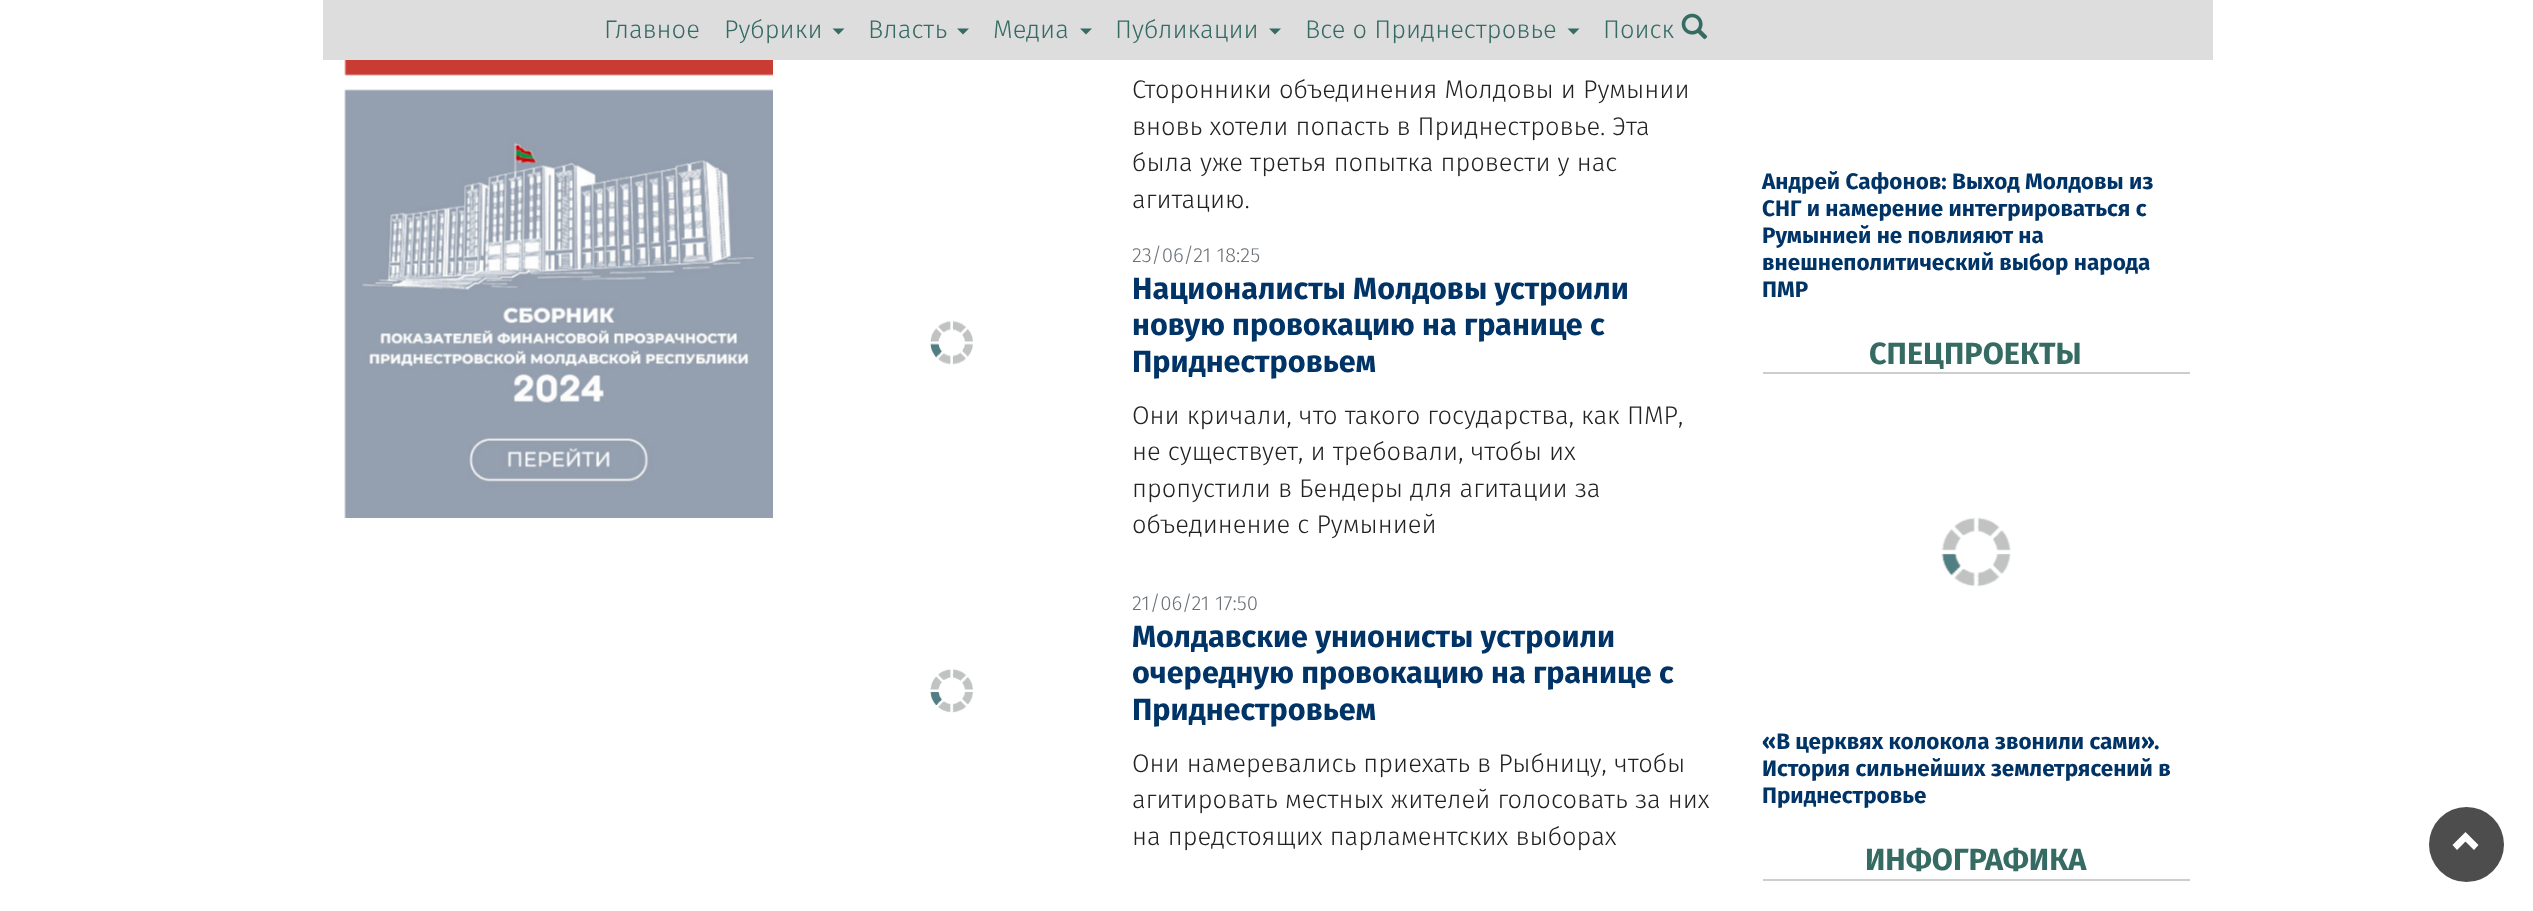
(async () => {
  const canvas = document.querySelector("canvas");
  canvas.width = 2533;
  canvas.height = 911;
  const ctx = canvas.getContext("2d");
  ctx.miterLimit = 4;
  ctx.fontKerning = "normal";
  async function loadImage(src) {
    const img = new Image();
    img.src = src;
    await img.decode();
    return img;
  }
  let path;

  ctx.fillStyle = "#ffffff";
  ctx.fillRect(0, 0, 2533, 911);
  ctx.fillStyle = "#dddddd";
  ctx.fillRect(323, 0, 1890, 60);
  ctx.fillStyle = "#356b62";
  path = new Path2D("M832.5 28.5H844.5L838.5 34.5Z");
  ctx.fill(path);
  path = new Path2D("M957 28.5H969L963 34.5Z");
  ctx.fill(path);
  path = new Path2D("M1080 28.5H1092L1086 34.5Z");
  ctx.fill(path);
  path = new Path2D("M1269 28.5H1281L1275 34.5Z");
  ctx.fill(path);
  path = new Path2D("M1567.5 28.5H1579.5L1573.5 34.5Z");
  ctx.fill(path);
  ctx.drawImage(await loadImage("img/1.png"), 1681, 13, 27, 27);
  ctx.drawImage(await loadImage("img/2.png"), 344, 60, 429, 16);
  ctx.drawImage(await loadImage("img/3.png"), 344, 89, 429, 429);
  ctx.drawImage(await loadImage("img/4.png"), 930, 321, 43, 44);
  ctx.drawImage(await loadImage("img/5.png"), 930, 669, 44, 44);
  ctx.fillStyle = "#cdcdcd";
  ctx.fillRect(1763, 372, 427, 2);
  ctx.drawImage(await loadImage("img/6.png"), 1941, 517, 70, 70);
  ctx.fillRect(1763, 879, 427, 2);
  ctx.fillStyle = "#4d4d4d";
  ctx.beginPath();
  ctx.arc(2466.5, 844.5, 37.5, 0, Math.PI * 2);
  ctx.fill();
  ctx.fillStyle = "#ffffff";
  path = new Path2D("M2478.5 845L2474 850L2465.5 841.5L2457 850L2452.5 845L2465.5 832Z");
  ctx.fill(path);
  ctx.font = "300 25.5px Fira Sans";
  ctx.fillStyle = "#356b62";
  for (const [text, x, y] of [
    ["Главное", 604, 38],
    ["Рубрики", 724, 38],
    ["Власть", 868, 38],
    ["Медиа", 993, 38],
    ["Публикации", 1115, 38],
    ["Все о Приднестровье", 1305, 38],
    ["Поиск", 1603, 38],
  ]) {
    ctx.fillText(text, x, y);
  }
  ctx.fillStyle = "#222222";
  for (const [text, x, y] of [
    ["Сторонники объединения Молдовы и Румынии", 1132, 98],
    ["вновь хотели попасть в Приднестровье. Эта", 1132, 135],
    ["была уже третья попытка провести у нас", 1132, 171],
    ["агитацию.", 1132, 208],
  ]) {
    ctx.fillText(text, x, y);
  }
  ctx.font = "300 20.5px Fira Sans";
  ctx.fillStyle = "#6a7076";
  ctx.fillText("23/06/21 18:25", 1132, 262);
  ctx.font = "bold 30.6px Fira Sans";
  ctx.fillStyle = "#003366";
  for (const [text, x, y] of [
    ["Националисты Молдовы устроили", 1132, 299],
    ["новую провокацию на границе с", 1132, 335],
    ["Приднестровьем", 1132, 372],
  ]) {
    ctx.fillText(text, x, y);
  }
  ctx.font = "300 25.5px Fira Sans";
  ctx.fillStyle = "#222222";
  for (const [text, x, y] of [
    ["Они кричали, что такого государства, как ПМР,", 1132, 424],
    ["не существует, и требовали, чтобы их", 1132, 460],
    ["пропустили в Бендеры для агитации за", 1132, 497],
    ["объединение с Румынией", 1132, 533],
  ]) {
    ctx.fillText(text, x, y);
  }
  ctx.font = "300 20.5px Fira Sans";
  ctx.fillStyle = "#6a7076";
  ctx.fillText("21/06/21 17:50", 1132, 610);
  ctx.font = "bold 30.6px Fira Sans";
  ctx.fillStyle = "#003366";
  for (const [text, x, y] of [
    ["Молдавские унионисты устроили", 1132, 647],
    ["очередную провокацию на границе с", 1132, 683],
    ["Приднестровьем", 1132, 720],
  ]) {
    ctx.fillText(text, x, y);
  }
  ctx.font = "300 25.5px Fira Sans";
  ctx.fillStyle = "#222222";
  for (const [text, x, y] of [
    ["Они намеревались приехать в Рыбницу, чтобы", 1132, 772],
    ["агитировать местных жителей голосовать за них", 1132, 808],
    ["на предстоящих парламентских выборах", 1132, 845],
  ]) {
    ctx.fillText(text, x, y);
  }
  ctx.font = "bold 22.5px Fira Sans";
  ctx.fillStyle = "#003366";
  for (const [text, x, y] of [
    ["Андрей Сафонов: Выход Молдовы из", 1762, 189],
    ["СНГ и намерение интегрироваться с", 1762, 216],
    ["Румынией не повлияют на", 1762, 243],
    ["внешнеполитический выбор народа", 1762, 270],
    ["ПМР", 1762, 297],
  ]) {
    ctx.fillText(text, x, y);
  }
  ctx.font = "bold 30.6px Fira Sans";
  ctx.fillStyle = "#356b62";
  ctx.fillText("СПЕЦПРОЕКТЫ", 1869, 364);
  ctx.font = "bold 22.5px Fira Sans";
  ctx.fillStyle = "#003366";
  for (const [text, x, y] of [
    ["«В церквях колокола звонили сами».", 1762, 749],
    ["История сильнейших землетрясений в", 1762, 776],
    ["Приднестровье", 1762, 803],
  ]) {
    ctx.fillText(text, x, y);
  }
  ctx.font = "bold 30.6px Fira Sans";
  ctx.fillStyle = "#356b62";
  ctx.fillText("ИНФОГРАФИКА", 1865, 870);
})();
